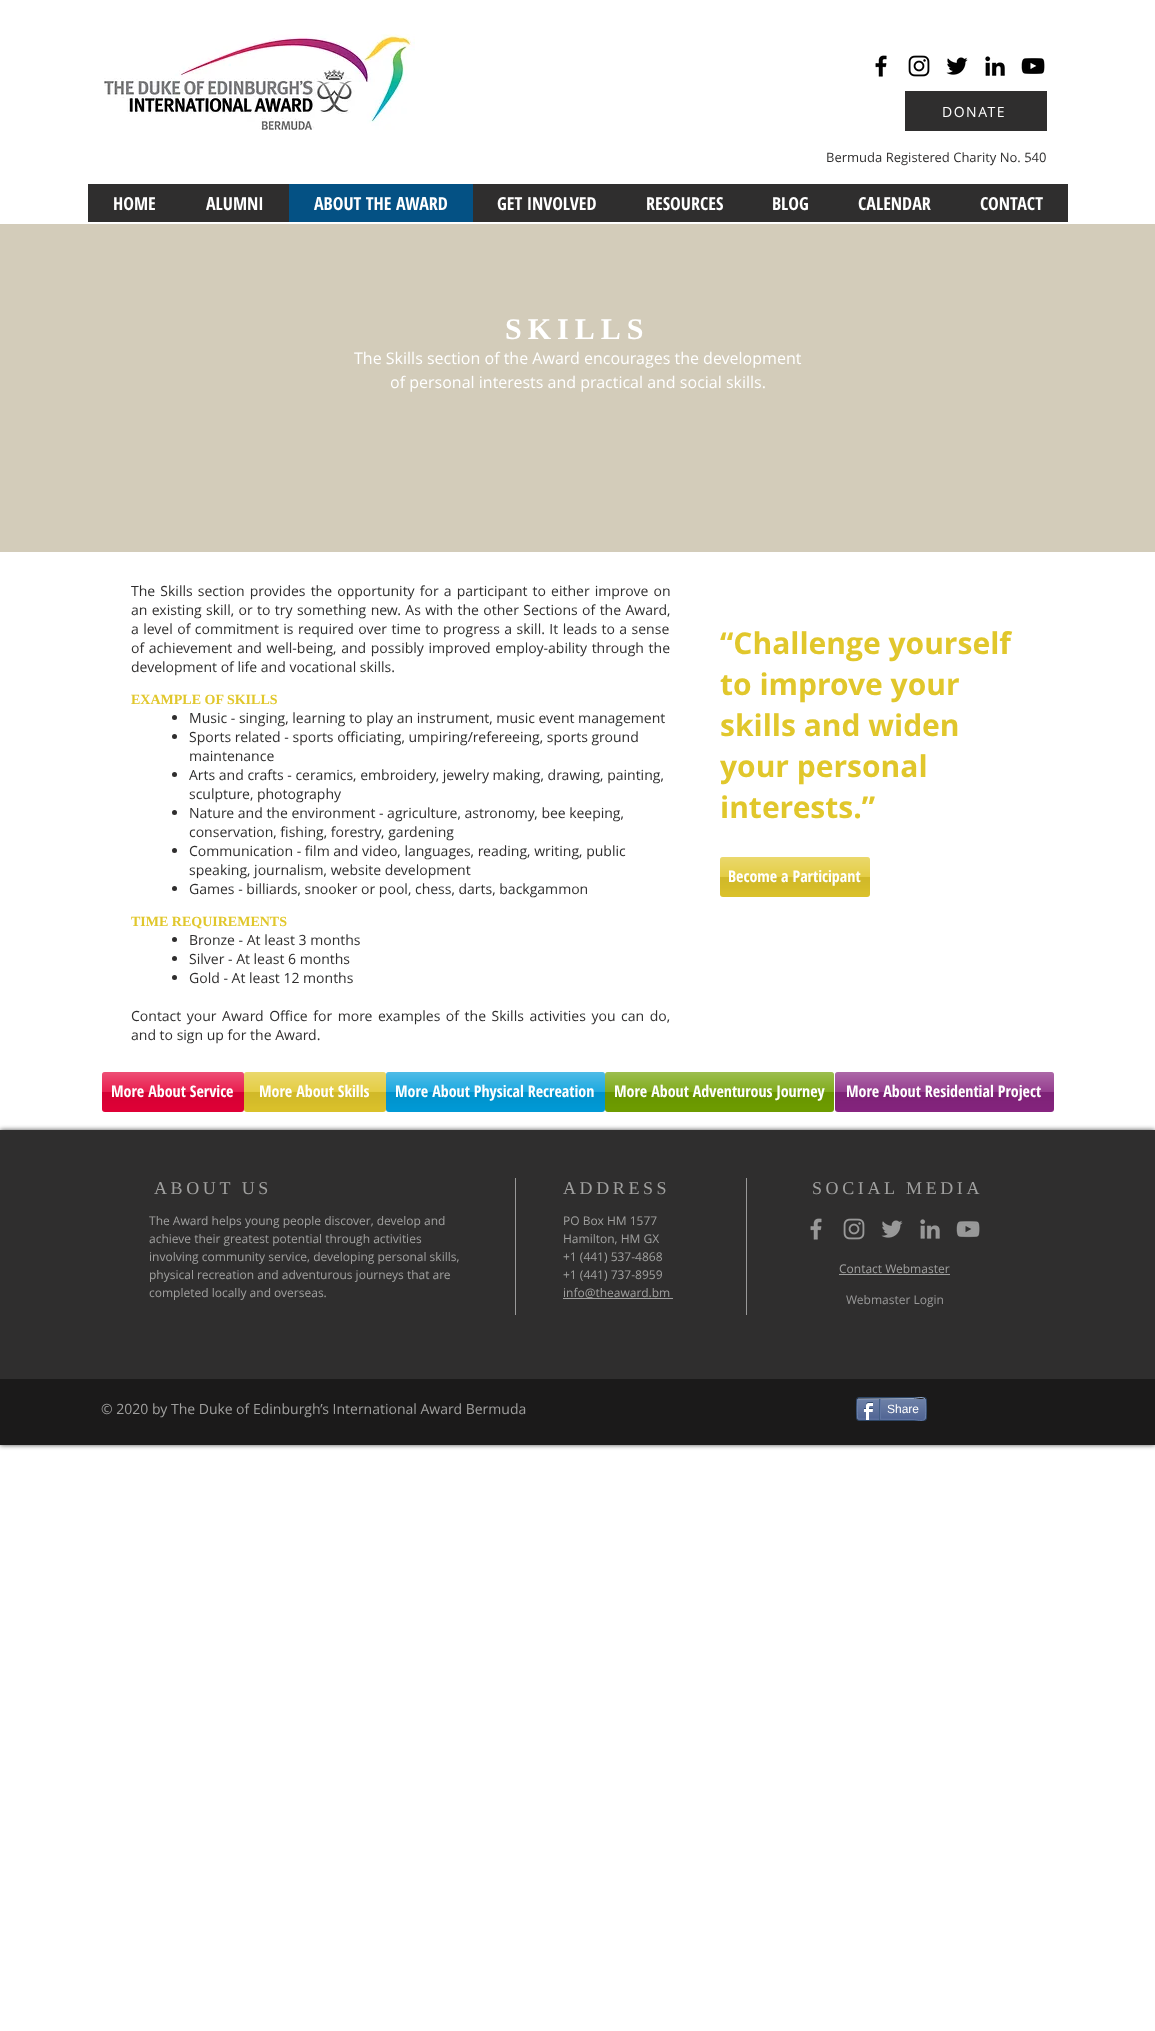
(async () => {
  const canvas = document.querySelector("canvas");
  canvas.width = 1155;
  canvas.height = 2031;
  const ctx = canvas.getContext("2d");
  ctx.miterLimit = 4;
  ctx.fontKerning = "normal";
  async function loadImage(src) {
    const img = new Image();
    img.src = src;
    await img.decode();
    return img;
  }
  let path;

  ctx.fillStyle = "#ffffff";
  ctx.fillRect(0, 0, 1155, 2031);
  ctx.drawImage(await loadImage("img/1.png"), 104, 34, 311, 96);
  ctx.drawImage(await loadImage("img/2.png"), 875, 55, 12, 22);
  ctx.drawImage(await loadImage("img/3.png"), 908, 55, 22, 22);
  ctx.drawImage(await loadImage("img/4.png"), 946, 57, 22, 18);
  ctx.drawImage(await loadImage("img/5.png"), 985, 56, 20, 20);
  ctx.drawImage(await loadImage("img/6.png"), 1021, 58, 24, 16);
  for (const [x, y, w, h, color] of [
    [905, 91, 142, 40, "#2f2e2e"],
    [88, 184, 201, 38, "#2f2e2e"],
    [289, 184, 184, 38, "#045184"],
    [473, 184, 595, 38, "#2f2e2e"],
    [0, 224, 1155, 328, "#d3ccba"],
  ]) {
    ctx.fillStyle = color;
    ctx.fillRect(x, y, w, h);
  }
  ctx.fillStyle = "#2f2e2e";
  ctx.beginPath();
  ctx.arc(174.5, 717.5, 2.5, 0, Math.PI * 2);
  ctx.fill();
  ctx.beginPath();
  ctx.arc(174.5, 736.5, 2.5, 0, Math.PI * 2);
  ctx.fill();
  ctx.beginPath();
  ctx.arc(174.5, 774.5, 2.5, 0, Math.PI * 2);
  ctx.fill();
  ctx.beginPath();
  ctx.arc(174.5, 812.5, 2.5, 0, Math.PI * 2);
  ctx.fill();
  ctx.beginPath();
  ctx.arc(174.5, 850.5, 2.5, 0, Math.PI * 2);
  ctx.fill();
  ctx.beginPath();
  ctx.arc(174.5, 888.5, 2.5, 0, Math.PI * 2);
  ctx.fill();
  ctx.beginPath();
  ctx.arc(174.5, 939.5, 2.5, 0, Math.PI * 2);
  ctx.fill();
  ctx.beginPath();
  ctx.arc(174.5, 958.5, 2.5, 0, Math.PI * 2);
  ctx.fill();
  ctx.beginPath();
  ctx.arc(174.5, 977.5, 2.5, 0, Math.PI * 2);
  ctx.fill();
  ctx.fillStyle = "#e1c72c";
  ctx.beginPath();
  ctx.roundRect(720, 857, 150, 40, 3);
  ctx.fill();
  ctx.drawImage(await loadImage("img/7.png"), 720, 857, 150, 40);
  ctx.fillStyle = "#e60038";
  ctx.beginPath();
  ctx.roundRect(102, 1072, 142, 40, 3);
  ctx.fill();
  ctx.drawImage(await loadImage("img/8.png"), 102, 1072, 142, 40);
  ctx.fillStyle = "#e1c72c";
  ctx.beginPath();
  ctx.roundRect(244, 1072, 142, 40, 3);
  ctx.fill();
  ctx.drawImage(await loadImage("img/9.png"), 244, 1072, 142, 40);
  ctx.fillStyle = "#009edc";
  ctx.beginPath();
  ctx.roundRect(386, 1072, 219, 40, 3);
  ctx.fill();
  ctx.drawImage(await loadImage("img/10.png"), 386, 1072, 219, 40);
  ctx.fillStyle = "#71a100";
  ctx.beginPath();
  ctx.roundRect(605, 1072, 229, 40, 3);
  ctx.fill();
  ctx.drawImage(await loadImage("img/11.png"), 605, 1072, 229, 40);
  ctx.fillStyle = "#882581";
  ctx.beginPath();
  ctx.roundRect(835, 1072, 219, 40, 3);
  ctx.fill();
  ctx.drawImage(await loadImage("img/12.png"), 835, 1072, 219, 38);
  ctx.fillStyle = "rgba(0, 0, 0, 0.7)";
  ctx.filter = "blur(2.5px)";
  ctx.beginPath();
  ctx.rect(0, 1130, 1155, 315);
  ctx.fill();
  ctx.filter = "none";
  for (const [x, y, w, h, color] of [
    [0, 1130, 1155, 249, "#2f2e2e"],
    [515, 1178, 1, 137, "#999999"],
    [746, 1178, 1, 137, "#999999"],
    [563, 1298, 110, 1, "#a0a09f"],
  ]) {
    ctx.fillStyle = color;
    ctx.fillRect(x, y, w, h);
  }
  ctx.drawImage(await loadImage("img/13.png"), 810, 1218, 12, 22);
  ctx.drawImage(await loadImage("img/14.png"), 843, 1218, 22, 22);
  ctx.drawImage(await loadImage("img/15.png"), 881, 1220, 22, 18);
  ctx.drawImage(await loadImage("img/16.png"), 920, 1219, 20, 20);
  ctx.drawImage(await loadImage("img/17.png"), 956, 1221, 24, 17);
  ctx.fillRect(839, 1274, 111, 1);
  ctx.fillStyle = "#1b1a1a";
  ctx.fillRect(0, 1379, 1155, 66);
  ctx.beginPath();
  ctx.roundRect(856.5, 1397.5, 70, 23, 2.5);
  ctx.strokeStyle = "#2d4565";
  ctx.stroke();
  ctx.drawImage(await loadImage("img/18.png"), 857, 1399, 69, 21);
  path = new Path2D("M858 1399L913 1398.5C917 1398.5 922 1396 925 1399");
  ctx.strokeStyle = "#9aabc6";
  ctx.stroke(path);
  path = new Path2D("M925 1399C926 1399.5 926 1418.5 925 1419");
  ctx.strokeStyle = "#6f83ad";
  ctx.stroke(path);
  path = new Path2D("M925 1419C922 1422 917 1419.5 913 1419.5L858 1419");
  ctx.strokeStyle = "#6176a3";
  ctx.stroke(path);
  path = new Path2D("M858 1419C857 1418.5 857 1399.5 858 1399");
  ctx.strokeStyle = "#6f83ad";
  ctx.stroke(path);
  ctx.drawImage(await loadImage("img/19.png"), 863, 1402, 10, 18);
  ctx.fillStyle = "#425e85";
  ctx.fillRect(879, 1399, 1, 21);
  ctx.fillStyle = "#6176a3";
  ctx.fillRect(880, 1399, 1, 20);
  ctx.letterSpacing = "1.5px";
  ctx.font = "14px Open Sans";
  ctx.fillStyle = "#ffffff";
  ctx.fillText("DONATE", 942, 117);
  ctx.letterSpacing = "0px";
  ctx.font = "13px Open Sans";
  ctx.fillStyle = "#2f2e2e";
  ctx.fillText("Bermuda Registered Charity No. 540", 826, 162);
  ctx.font = "bold 18px Open Sans Condensed";
  ctx.fillStyle = "#ffffff";
  for (const [text, x, y] of [
    ["HOME", 113, 210],
    ["ALUMNI", 206, 210],
    ["ABOUT THE AWARD", 314, 210],
    ["GET INVOLVED", 497, 210],
    ["RESOURCES", 646, 210],
    ["BLOG", 772, 210],
    ["CALENDAR", 858, 210],
    ["CONTACT", 980, 210],
  ]) {
    ctx.fillText(text, x, y);
  }
  ctx.letterSpacing = "6px";
  ctx.font = "bold 30px Liberation Serif";
  ctx.fillText("SKILLS", 505, 339);
  ctx.letterSpacing = "0px";
  ctx.font = "16px Open Sans";
  ctx.fillText("The Skills section of the Award encourages the development", 354, 364);
  ctx.fillText("of personal interests and practical and social skills.", 390, 388);
  ctx.wordSpacing = "1.5px";
  ctx.font = "14px Open Sans";
  ctx.fillStyle = "#2f2e2e";
  ctx.fillText("The Skills section provides the opportunity for a participant to either improve on", 131, 596);
  ctx.wordSpacing = "0.75px";
  ctx.fillText("an existing skill, or to try something new. As with the other Sections of the Award,", 131, 615);
  ctx.wordSpacing = "0.8px";
  ctx.fillText("a level of commitment is required over time to progress a skill. It leads to a sense", 131, 634);
  ctx.wordSpacing = "1px";
  ctx.fillText("of achievement and well-being, and possibly improved employ-ability through the", 131, 653);
  ctx.wordSpacing = "0px";
  ctx.fillText("development of life and vocational skills.", 131, 672);
  ctx.font = "bold 14px Liberation Serif";
  ctx.fillStyle = "#e1c72c";
  ctx.fillText("EXAMPLE OF SKILLS", 131, 704);
  ctx.font = "14px Open Sans";
  ctx.fillStyle = "#2f2e2e";
  for (const [text, x, y] of [
    ["Music - singing, learning to play an instrument, music event management", 189, 723],
    ["Sports related - sports officiating, umpiring/refereeing, sports ground", 189, 742],
    ["maintenance", 189, 761],
    ["Arts and crafts - ceramics, embroidery, jewelry making, drawing, painting,", 189, 780],
    ["sculpture, photography", 189, 799],
    ["Nature and the environment - agriculture, astronomy, bee keeping,", 189, 818],
    ["conservation, fishing, forestry, gardening", 189, 837],
    ["Communication - film and video, languages, reading, writing, public", 189, 856],
    ["speaking, journalism, website development", 189, 875],
    ["Games - billiards, snooker or pool, chess, darts, backgammon", 189, 894],
  ]) {
    ctx.fillText(text, x, y);
  }
  ctx.font = "bold 14px Liberation Serif";
  ctx.fillStyle = "#e1c72c";
  ctx.fillText("TIME REQUIREMENTS", 131, 926);
  ctx.font = "14px Open Sans";
  ctx.fillStyle = "#2f2e2e";
  for (const [text, x, y] of [
    ["Bronze - At least 3 months", 189, 945],
    ["Silver - At least 6 months", 189, 964],
    ["Gold - At least 12 months", 189, 983],
  ]) {
    ctx.fillText(text, x, y);
  }
  ctx.wordSpacing = "1.9px";
  ctx.fillText("Contact your Award Office for more examples of the Skills activities you can do,", 131, 1021);
  ctx.wordSpacing = "0px";
  ctx.fillText("and to sign up for the Award.", 131, 1040);
  ctx.font = "bold 30px Open Sans";
  ctx.fillStyle = "#e1c72c";
  for (const [text, x, y] of [
    ["“Challenge yourself", 720, 654],
    ["to improve your", 720, 695],
    ["skills and widen", 720, 736],
    ["your personal", 720, 777],
    ["interests.”", 720, 818],
  ]) {
    ctx.fillText(text, x, y);
  }
  ctx.font = "bold 16px Open Sans Condensed";
  ctx.fillStyle = "#ffffff";
  for (const [text, x, y] of [
    ["Become a Participant", 728, 882],
    ["More About Service", 111, 1097],
    ["More About Skills", 259, 1097],
    ["More About Physical Recreation", 395, 1097],
    ["More About Adventurous Journey", 614, 1097],
    ["More About Residential Project", 846, 1097],
  ]) {
    ctx.fillText(text, x, y);
  }
  ctx.letterSpacing = "3.6px";
  ctx.font = "18px Liberation Serif";
  ctx.fillStyle = "#a0a09f";
  for (const [text, x, y] of [
    ["ABOUT US", 154, 1194],
    ["ADDRESS", 563, 1194],
    ["SOCIAL MEDIA", 812, 1194],
  ]) {
    ctx.fillText(text, x, y);
  }
  ctx.letterSpacing = "0px";
  ctx.font = "12px Open Sans";
  for (const [text, x, y] of [
    ["The Award helps young people discover, develop and", 149, 1225],
    ["achieve their greatest potential through activities", 149, 1243],
    ["involving community service, developing personal skills,", 149, 1261],
    ["physical recreation and adventurous journeys that are", 149, 1279],
    ["completed locally and overseas.", 149, 1297],
    ["PO Box HM 1577", 563, 1225],
    ["Hamilton, HM GX", 563, 1243],
    ["+1 (441) 537-4868", 563, 1261],
    ["+1 (441) 737-8959", 563, 1279],
    ["info@theaward.bm", 563, 1297],
    ["Contact Webmaster", 839, 1273],
  ]) {
    ctx.fillText(text, x, y);
  }
  ctx.fillStyle = "#999999";
  ctx.fillText("Webmaster Login", 846, 1304);
  ctx.font = "14px Open Sans";
  ctx.fillStyle = "#a0a09f";
  ctx.fillText("© 2020 by The Duke of Edinburgh’s International Award Bermuda", 101, 1414);
  ctx.font = "12px Liberation Sans";
  ctx.fillStyle = "#ffffff";
  ctx.fillText("Share", 887, 1413);
})();
